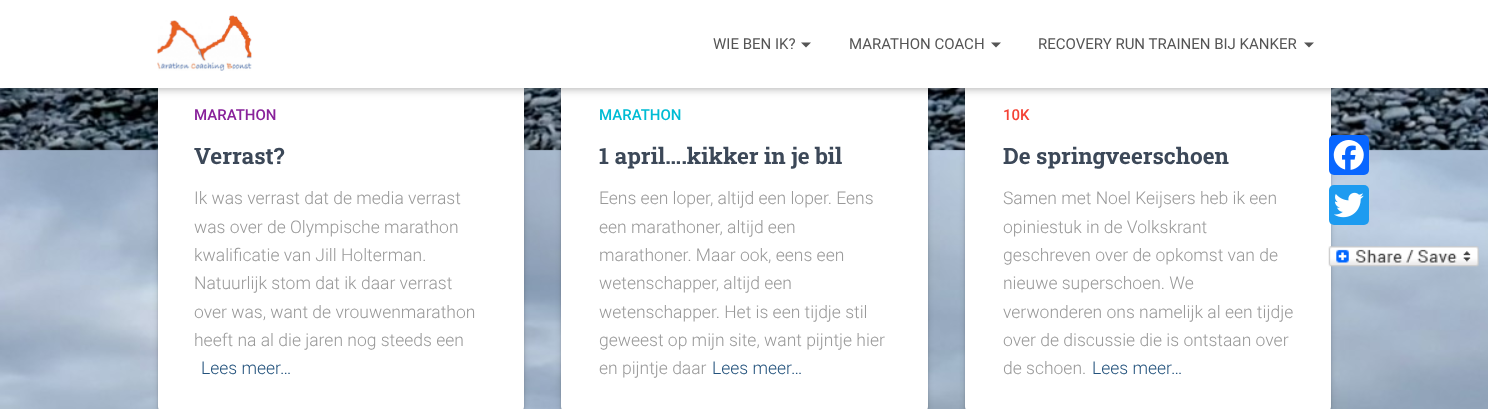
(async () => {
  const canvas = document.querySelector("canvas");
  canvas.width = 1488;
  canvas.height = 409;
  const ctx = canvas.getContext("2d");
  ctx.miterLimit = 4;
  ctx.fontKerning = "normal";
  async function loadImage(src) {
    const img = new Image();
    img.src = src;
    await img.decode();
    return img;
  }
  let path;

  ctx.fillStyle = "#ffffff";
  ctx.fillRect(0, 0, 1488, 409);
  ctx.drawImage(await loadImage("img/1.png"), 0, 88, 1488, 321);
  ctx.fillStyle = "rgba(0, 0, 0, 0.12)";
  ctx.filter = "blur(3px)";
  ctx.beginPath();
  ctx.roundRect(158, 74, 366, 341, 8);
  ctx.fill();
  ctx.filter = "none";
  ctx.fillStyle = "rgba(0, 0, 0, 0.14)";
  ctx.filter = "blur(1px)";
  ctx.beginPath();
  ctx.roundRect(158, 75, 366, 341, 8);
  ctx.fill();
  ctx.filter = "none";
  ctx.fillStyle = "#ffffff";
  ctx.beginPath();
  ctx.roundRect(158, 73, 366, 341, 8);
  ctx.fill();
  ctx.fillStyle = "rgba(0, 0, 0, 0.12)";
  ctx.filter = "blur(3px)";
  ctx.beginPath();
  ctx.roundRect(561, 74, 367, 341, 8);
  ctx.fill();
  ctx.filter = "none";
  ctx.fillStyle = "rgba(0, 0, 0, 0.14)";
  ctx.filter = "blur(1px)";
  ctx.beginPath();
  ctx.roundRect(561, 75, 367, 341, 8);
  ctx.fill();
  ctx.filter = "none";
  ctx.fillStyle = "#ffffff";
  ctx.beginPath();
  ctx.roundRect(561, 73, 367, 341, 8);
  ctx.fill();
  ctx.fillStyle = "rgba(0, 0, 0, 0.12)";
  ctx.filter = "blur(3px)";
  ctx.beginPath();
  ctx.roundRect(965, 74, 366, 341, 8);
  ctx.fill();
  ctx.filter = "none";
  ctx.fillStyle = "rgba(0, 0, 0, 0.14)";
  ctx.filter = "blur(1px)";
  ctx.beginPath();
  ctx.roundRect(965, 75, 366, 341, 8);
  ctx.fill();
  ctx.filter = "none";
  ctx.fillStyle = "#ffffff";
  ctx.beginPath();
  ctx.roundRect(965, 73, 366, 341, 8);
  ctx.fill();
  ctx.fillStyle = "rgba(0, 0, 0, 0.1)";
  ctx.filter = "blur(3px)";
  ctx.beginPath();
  ctx.rect(3, 8, 1483, 82);
  ctx.fill();
  ctx.filter = "none";
  ctx.fillStyle = "rgba(0, 0, 0, 0.12)";
  ctx.filter = "blur(6px)";
  ctx.beginPath();
  ctx.rect(0, 1, 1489, 88);
  ctx.fill();
  ctx.filter = "none";
  ctx.fillStyle = "rgba(0, 0, 0, 0.42)";
  ctx.filter = "blur(6px)";
  ctx.beginPath();
  ctx.rect(8, 9, 1473, 72);
  ctx.fill();
  ctx.filter = "none";
  ctx.fillStyle = "#ffffff";
  ctx.fillRect(0, 0, 1488, 88);
  ctx.drawImage(await loadImage("img/2.png"), 157, 15, 95, 56);
  ctx.fillStyle = "#555555";
  path = new Path2D("M801 42.5H811L806 47.5Z");
  ctx.fill(path);
  path = new Path2D("M991 42.5H1001L996 47.5Z");
  ctx.fill(path);
  path = new Path2D("M1304 42.5H1314L1309 47.5Z");
  ctx.fill(path);
  ctx.fillStyle = "#0866ff";
  ctx.beginPath();
  ctx.roundRect(1329, 135, 40, 40, 5);
  ctx.fill();
  ctx.drawImage(await loadImage("img/3.png"), 1333, 140, 31, 30);
  ctx.fillStyle = "#1d9bf0";
  ctx.beginPath();
  ctx.roundRect(1329, 185, 40, 40, 5);
  ctx.fill();
  ctx.drawImage(await loadImage("img/4.png"), 1334, 192, 30, 26);
  ctx.drawImage(await loadImage("img/5.png"), 1328, 246, 151, 21);
  ctx.font = "15px Roboto";
  ctx.fillStyle = "#555555";
  for (const [text, x, y] of [
    ["WIE BEN IK?", 713, 49],
    ["MARATHON COACH", 849, 49],
    ["RECOVERY RUN TRAINEN BIJ KANKER", 1038, 49],
  ]) {
    ctx.fillText(text, x, y);
  }
  ctx.font = "500 15px Roboto";
  ctx.fillStyle = "#89229b";
  ctx.fillText("MARATHON", 194, 120);
  ctx.font = "bold 22.5px Roboto Slab";
  ctx.fillStyle = "#3c4858";
  ctx.fillText("Verrast?", 194, 164);
  ctx.font = "300 17.5px Roboto";
  ctx.fillStyle = "#999999";
  for (const [text, x, y] of [
    ["Ik was verrast dat de media verrast", 194, 204],
    ["was over de Olympische marathon", 194, 233],
    ["kwalificatie van Jill Holterman.", 194, 261],
    ["Natuurlijk stom dat ik daar verrast", 194, 289],
    ["over was, want de vrouwenmarathon", 194, 318],
    ["heeft na al die jaren nog steeds een", 194, 346],
  ]) {
    ctx.fillText(text, x, y);
  }
  ctx.fillStyle = "#23527c";
  ctx.fillText("Lees meer…", 201, 374);
  ctx.font = "500 15px Roboto";
  ctx.fillStyle = "#00bcd4";
  ctx.fillText("MARATHON", 599, 120);
  ctx.font = "bold 22.5px Roboto Slab";
  ctx.fillStyle = "#3c4858";
  ctx.fillText("1 april….kikker in je bil", 599, 164);
  ctx.font = "300 17.5px Roboto";
  ctx.fillStyle = "#999999";
  for (const [text, x, y] of [
    ["Eens een loper, altijd een loper. Eens", 599, 204],
    ["een marathoner, altijd een", 599, 233],
    ["marathoner. Maar ook, eens een", 599, 261],
    ["wetenschapper, altijd een", 599, 289],
    ["wetenschapper. Het is een tijdje stil", 599, 318],
    ["geweest op mijn site, want pijntje hier", 599, 346],
    ["en pijntje daar", 599, 374],
  ]) {
    ctx.fillText(text, x, y);
  }
  ctx.fillStyle = "#23527c";
  ctx.fillText("Lees meer…", 712, 374);
  ctx.font = "500 15px Roboto";
  ctx.fillStyle = "#f44336";
  ctx.fillText("10K", 1003, 120);
  ctx.font = "bold 22.5px Roboto Slab";
  ctx.fillStyle = "#3c4858";
  ctx.fillText("De springveerschoen", 1003, 164);
  ctx.font = "300 17.5px Roboto";
  ctx.fillStyle = "#999999";
  for (const [text, x, y] of [
    ["Samen met Noel Keijsers heb ik een", 1003, 204],
    ["opiniestuk in de Volkskrant", 1003, 233],
    ["geschreven over de opkomst van de", 1003, 261],
    ["nieuwe superschoen. We", 1003, 289],
    ["verwonderen ons namelijk al een tijdje", 1003, 318],
    ["over de discussie die is ontstaan over", 1003, 346],
    ["de schoen.", 1003, 374],
  ]) {
    ctx.fillText(text, x, y);
  }
  ctx.fillStyle = "#23527c";
  ctx.fillText("Lees meer…", 1092, 374);
})();
